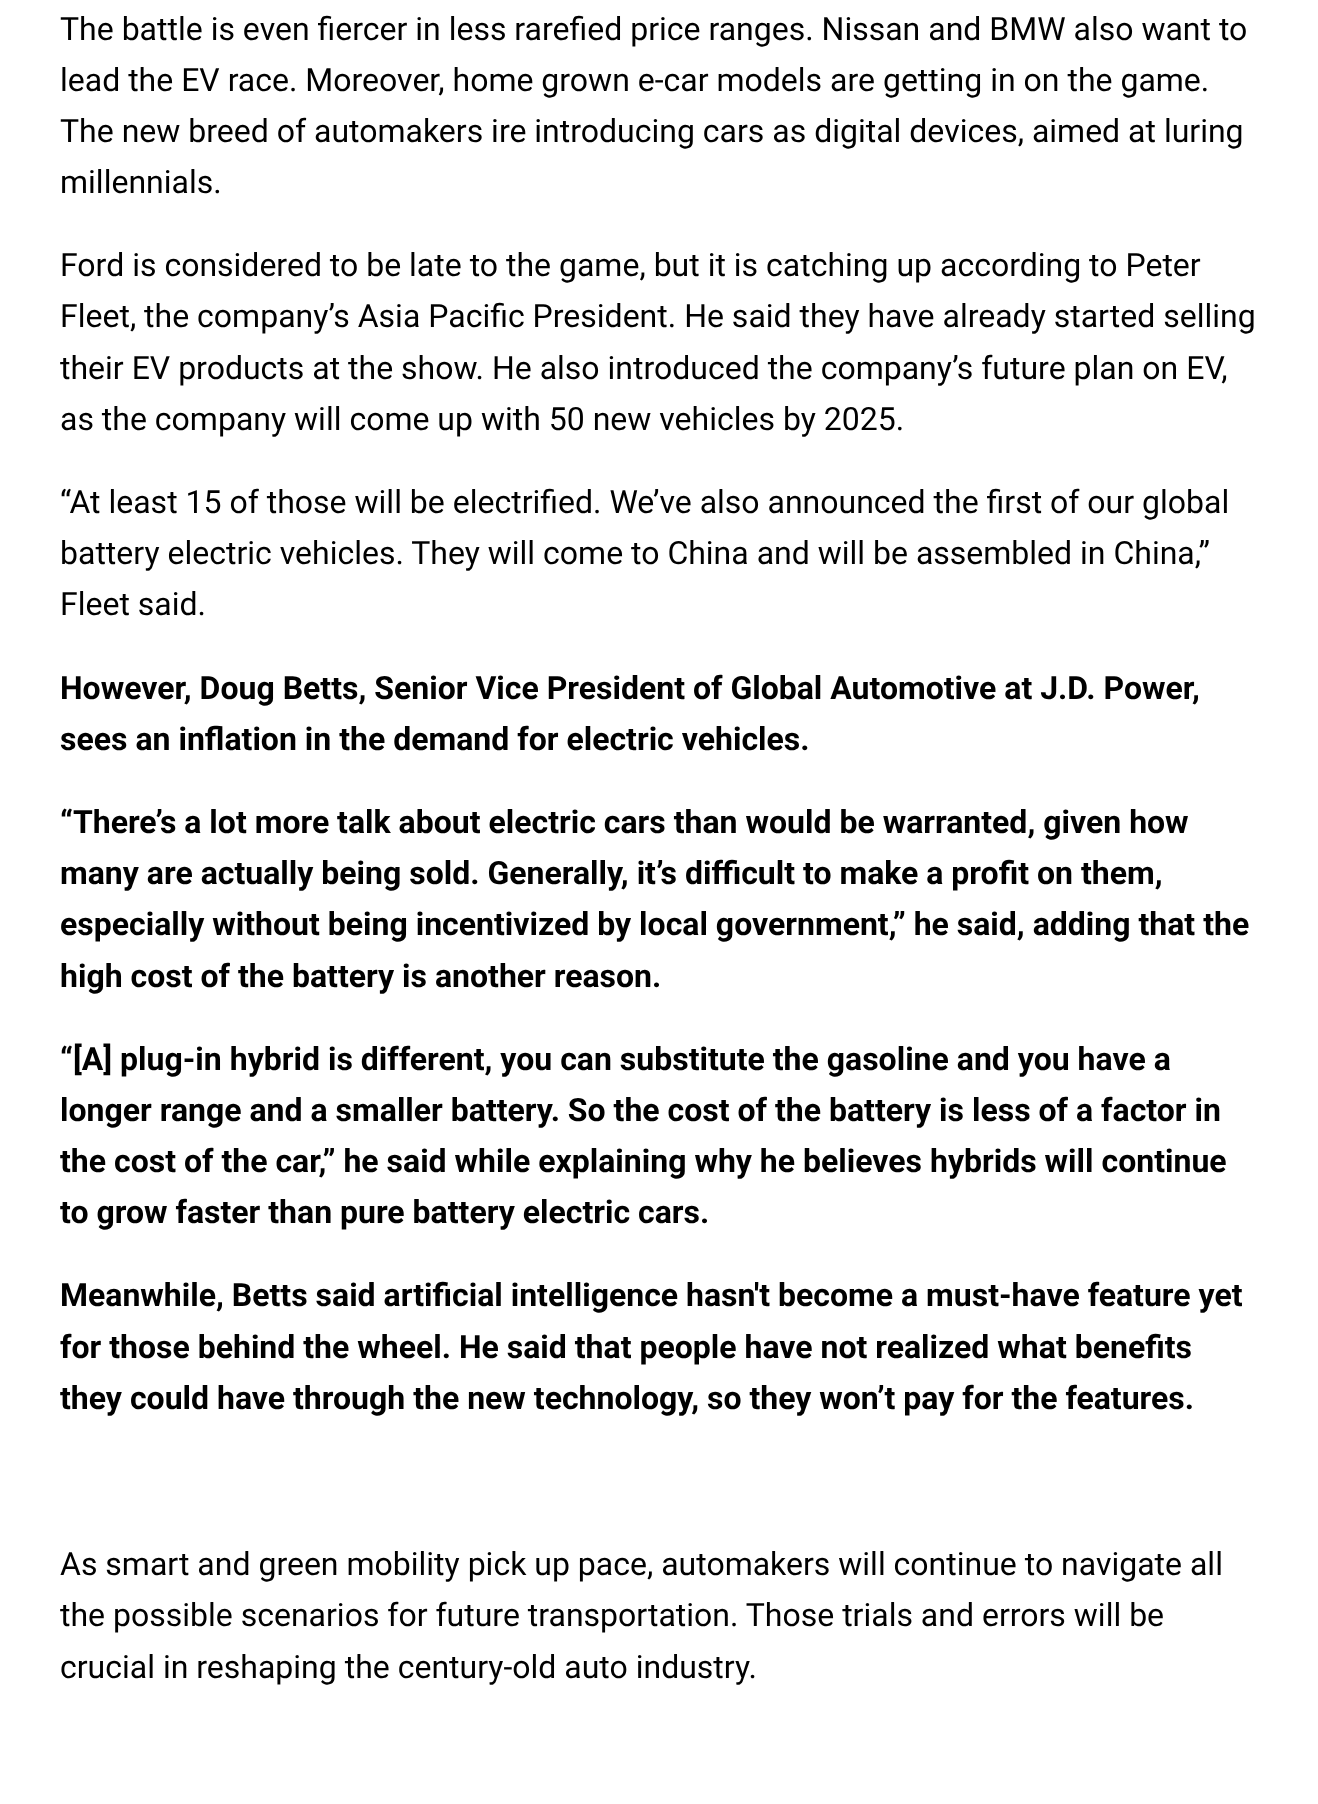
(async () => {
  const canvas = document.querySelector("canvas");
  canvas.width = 1318;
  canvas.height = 1804;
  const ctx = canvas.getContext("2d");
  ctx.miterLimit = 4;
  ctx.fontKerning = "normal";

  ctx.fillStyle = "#ffffff";
  ctx.fillRect(0, 0, 1318, 1804);
  ctx.font = "32px Roboto";
  ctx.fillStyle = "#000000";
  for (const [text, x, y] of [
    ["The battle is even fiercer in less rarefied price ranges. Nissan and BMW also want to", 60, 40],
    ["lead the EV race. Moreover, home grown e-car models are getting in on the game.", 60, 91],
    ["The new breed of automakers ire introducing cars as digital devices, aimed at luring", 60, 142],
    ["millennials.", 60, 193],
    ["Ford is considered to be late to the game, but it is catching up according to Peter", 60, 276],
    ["Fleet, the company’s Asia Pacific President. He said they have already started selling", 60, 327],
    ["their EV products at the show. He also introduced the company’s future plan on EV,", 60, 379],
    ["as the company will come up with 50 new vehicles by 2025.", 60, 430],
    ["“At least 15 of those will be electrified. We’ve also announced the first of our global", 60, 513],
    ["battery electric vehicles. They will come to China and will be assembled in China,”", 60, 564],
    ["Fleet said.", 60, 615],
  ]) {
    ctx.fillText(text, x, y);
  }
  ctx.font = "bold 32px Roboto";
  for (const [text, x, y] of [
    ["However, Doug Betts, Senior Vice President of Global Automotive at J.D. Power,", 60, 699],
    ["sees an inflation in the demand for electric vehicles.", 60, 750],
    ["“There’s a lot more talk about electric cars than would be warranted, given how", 60, 833],
    ["many are actually being sold. Generally, it’s difficult to make a profit on them,", 60, 884],
    ["especially without being incentivized by local government,” he said, adding that the", 60, 935],
    ["high cost of the battery is another reason.", 60, 987],
    ["“[A] plug-in hybrid is different, you can substitute the gasoline and you have a", 60, 1070],
    ["longer range and a smaller battery. So the cost of the battery is less of a factor in", 60, 1121],
    ["the cost of the car,” he said while explaining why he believes hybrids will continue", 60, 1172],
    ["to grow faster than pure battery electric cars.", 60, 1223],
    ["Meanwhile, Betts said artificial intelligence hasn't become a must-have feature yet", 60, 1306],
    ["for those behind the wheel. He said that people have not realized what benefits", 60, 1358],
    ["they could have through the new technology, so they won’t pay for the features.", 60, 1409],
  ]) {
    ctx.fillText(text, x, y);
  }
  ctx.font = "32px Roboto";
  for (const [text, x, y] of [
    ["As smart and green mobility pick up pace, automakers will continue to navigate all", 60, 1575],
    ["the possible scenarios for future transportation. Those trials and errors will be", 60, 1626],
    ["crucial in reshaping the century-old auto industry.", 60, 1678],
  ]) {
    ctx.fillText(text, x, y);
  }
})();
